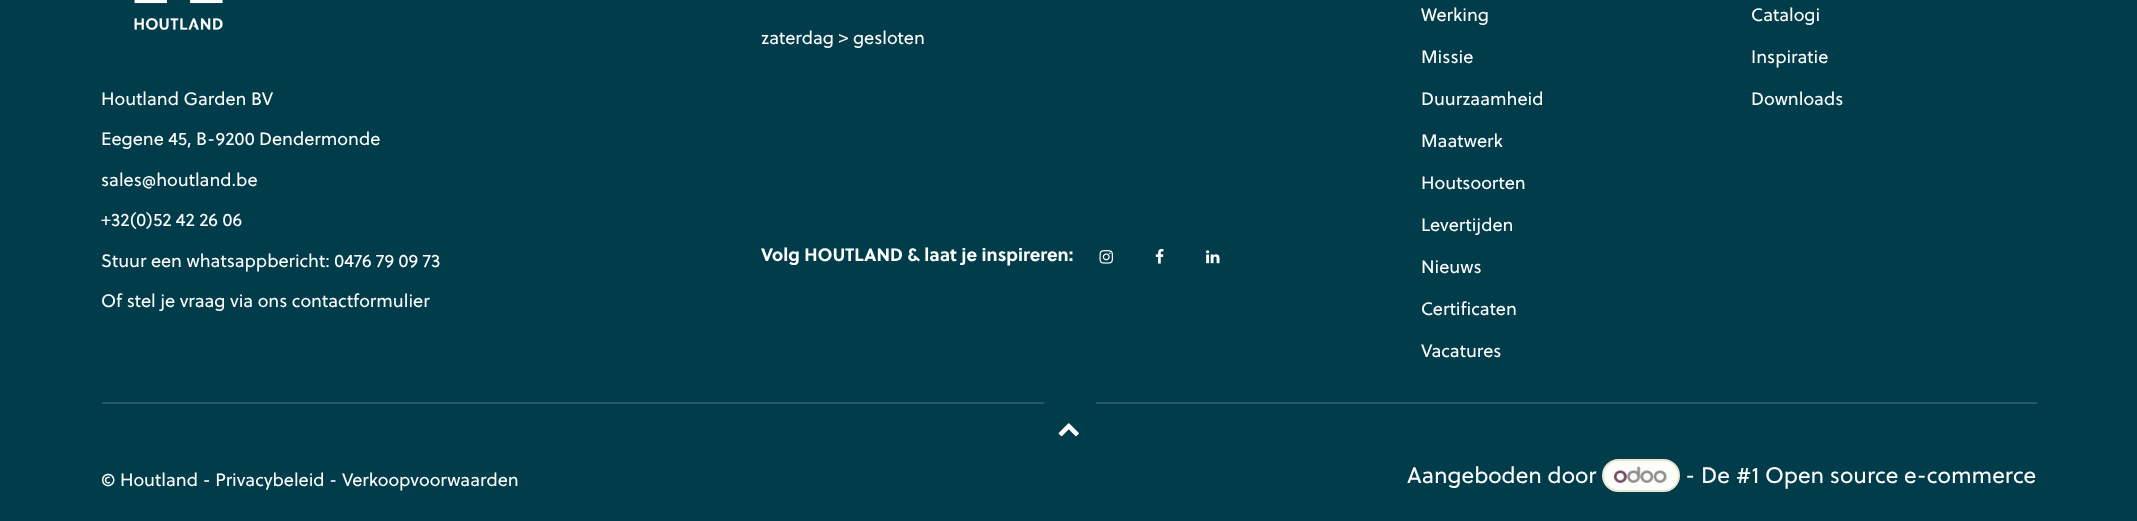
(async () => {
  const canvas = document.querySelector("canvas");
  canvas.width = 2137;
  canvas.height = 521;
  const ctx = canvas.getContext("2d");
  ctx.miterLimit = 4;
  ctx.fontKerning = "normal";
  async function loadImage(src) {
    const img = new Image();
    img.src = src;
    await img.decode();
    return img;
  }

  ctx.fillStyle = "#003c4a";
  ctx.fillRect(0, 0, 2137, 521);
  ctx.drawImage(await loadImage("img/1.png"), 134, 0, 89, 30);
  ctx.drawImage(await loadImage("img/2.png"), 1099, 250, 14, 14);
  ctx.drawImage(await loadImage("img/3.png"), 1155, 249, 9, 15);
  ctx.drawImage(await loadImage("img/4.png"), 1206, 250, 14, 14);
  ctx.fillStyle = "#265965";
  ctx.fillRect(102, 402, 1935, 2);
  ctx.fillStyle = "#003c4a";
  ctx.beginPath();
  ctx.arc(1070, 428, 36, 0, Math.PI * 2);
  ctx.fill();
  ctx.drawImage(await loadImage("img/5.png"), 1058, 423, 21, 14);
  ctx.fillStyle = "#fdfdfa";
  ctx.beginPath();
  ctx.roundRect(1603, 460, 76, 31, 15.5);
  ctx.fill();
  ctx.strokeStyle = "#e8e6d1";
  ctx.lineWidth = 2;
  ctx.stroke();
  ctx.drawImage(await loadImage("img/6.png"), 1614, 466, 53, 17);
  ctx.font = "18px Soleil";
  ctx.fillStyle = "#ffffff";
  for (const [text, x, y] of [
    ["Houtland Garden BV", 101, 105],
    ["Eegene 45, B-9200 Dendermonde", 101, 145],
    ["sales@houtland.be", 101, 186],
    ["+32(0)52 42 26 06", 101, 226],
    ["Stuur een whatsappbericht: 0476 79 09 73", 101, 267],
    ["Of stel je vraag via ons contactformulier", 101, 307],
    ["zaterdag > gesloten", 761, 44],
  ]) {
    ctx.fillText(text, x, y);
  }
  ctx.font = "bold 18px Soleil";
  ctx.fillText("Volg HOUTLAND & laat je inspireren:", 761, 261);
  ctx.font = "18px Soleil";
  for (const [text, x, y] of [
    ["Werking", 1421, 21],
    ["Missie", 1421, 63],
    ["Duurzaamheid", 1421, 105],
    ["Maatwerk", 1421, 147],
    ["Houtsoorten", 1421, 189],
    ["Levertijden", 1421, 231],
    ["Nieuws", 1421, 273],
    ["Certificaten", 1421, 315],
    ["Vacatures", 1421, 357],
    ["Catalogi", 1751, 21],
    ["Inspiratie", 1751, 63],
    ["Downloads", 1751, 105],
    ["© Houtland - Privacybeleid - Verkoopvoorwaarden", 101, 486],
  ]) {
    ctx.fillText(text, x, y);
  }
  ctx.font = "22.5px Soleil";
  ctx.fillText("Aangeboden door", 1407, 483);
  ctx.fillText("- De #1 Open source e-commerce", 1685, 483);
})();
